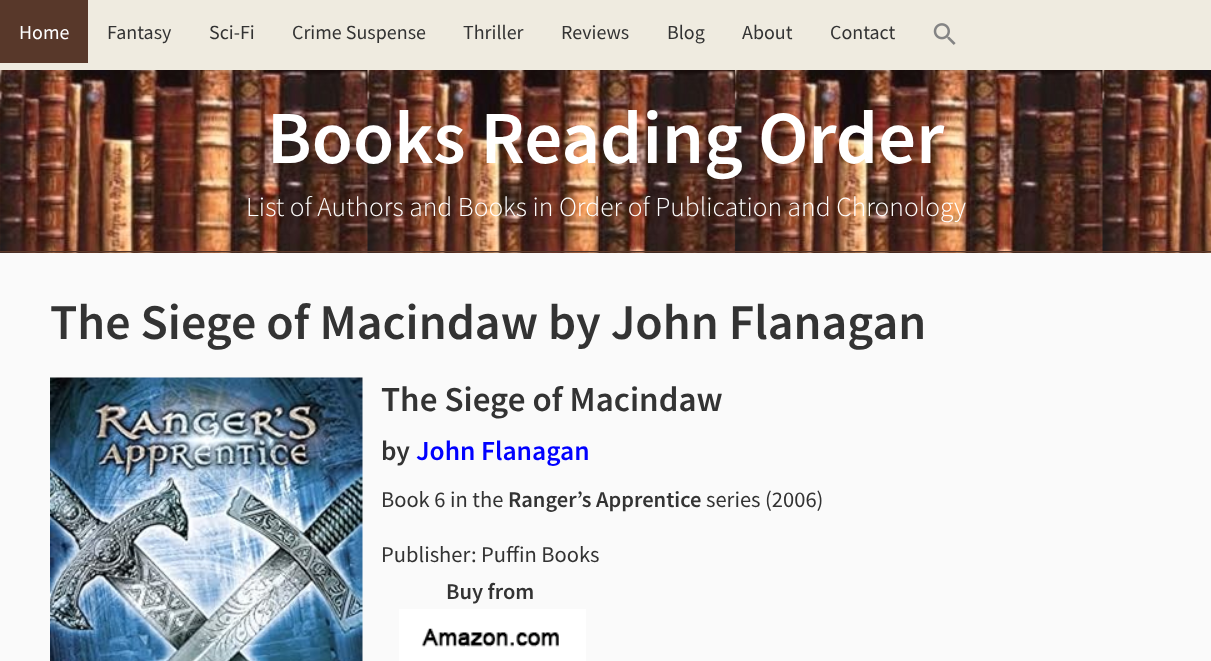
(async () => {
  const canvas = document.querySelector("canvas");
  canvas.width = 1211;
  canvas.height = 661;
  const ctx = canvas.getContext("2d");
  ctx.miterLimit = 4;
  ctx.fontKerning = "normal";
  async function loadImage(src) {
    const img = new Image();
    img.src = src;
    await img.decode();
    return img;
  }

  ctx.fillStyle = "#58382a";
  ctx.fillRect(0, 0, 1211, 661);
  ctx.fillStyle = "#efebe0";
  ctx.fillRect(0, 0, 1211, 70);
  ctx.fillStyle = "#58382a";
  ctx.fillRect(0, 0, 88, 63);
  ctx.drawImage(await loadImage("img/1.png"), 933, 23, 23, 22);
  ctx.drawImage(await loadImage("img/2.png"), 0, 70, 1211, 183);
  ctx.fillRect(0, 251, 1211, 1);
  ctx.fillStyle = "#fafafa";
  ctx.fillRect(0, 253, 1211, 408);
  ctx.drawImage(await loadImage("img/3.png"), 50, 377, 313, 284);
  ctx.drawImage(await loadImage("img/4.png"), 399, 609, 187, 52);
  ctx.font = "20px Source Sans Pro";
  ctx.fillStyle = "#ffffff";
  ctx.fillText("Home", 19, 39);
  ctx.fillStyle = "#333333";
  for (const [text, x, y] of [
    ["Fantasy", 107, 39],
    ["Sci-Fi", 209, 39],
    ["Crime Suspense", 292, 39],
    ["Thriller", 463, 39],
    ["Reviews", 561, 39],
    ["Blog", 667, 39],
    ["About", 742, 39],
    ["Contact", 830, 39],
  ]) {
    ctx.fillText(text, x, y);
  }
  ctx.font = "600 75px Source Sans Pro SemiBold";
  ctx.fillStyle = "#ffffff";
  ctx.fillText("Books Reading Order", 267, 163);
  ctx.font = "300 27.5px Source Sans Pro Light";
  ctx.fillText("List of Authors and Books in Order of Publication and Chronology", 246, 216);
  ctx.font = "600 50px Source Sans Pro SemiBold";
  ctx.fillStyle = "#333333";
  ctx.fillText("The Siege of Macindaw by John Flanagan", 50, 339);
  ctx.font = "600 35px Source Sans Pro SemiBold";
  ctx.fillText("The Siege of Macindaw", 381, 411);
  ctx.font = "600 27.5px Source Sans Pro SemiBold";
  ctx.fillText("by", 381, 460);
  ctx.fillStyle = "#0000ff";
  ctx.fillText("John Flanagan", 416, 460);
  ctx.font = "22.5px Source Sans Pro";
  ctx.fillStyle = "#333333";
  ctx.fillText("Book 6 in the", 381, 507);
  ctx.font = "600 22.5px Source Sans Pro SemiBold";
  ctx.fillText("Ranger’s Apprentice", 508, 507);
  ctx.font = "22.5px Source Sans Pro";
  ctx.fillText("series (2006)", 706, 507);
  ctx.fillText("Publisher: Puffin Books", 381, 562);
  ctx.font = "600 22.5px Source Sans Pro SemiBold";
  ctx.fillText("Buy from", 446, 599);
})();
